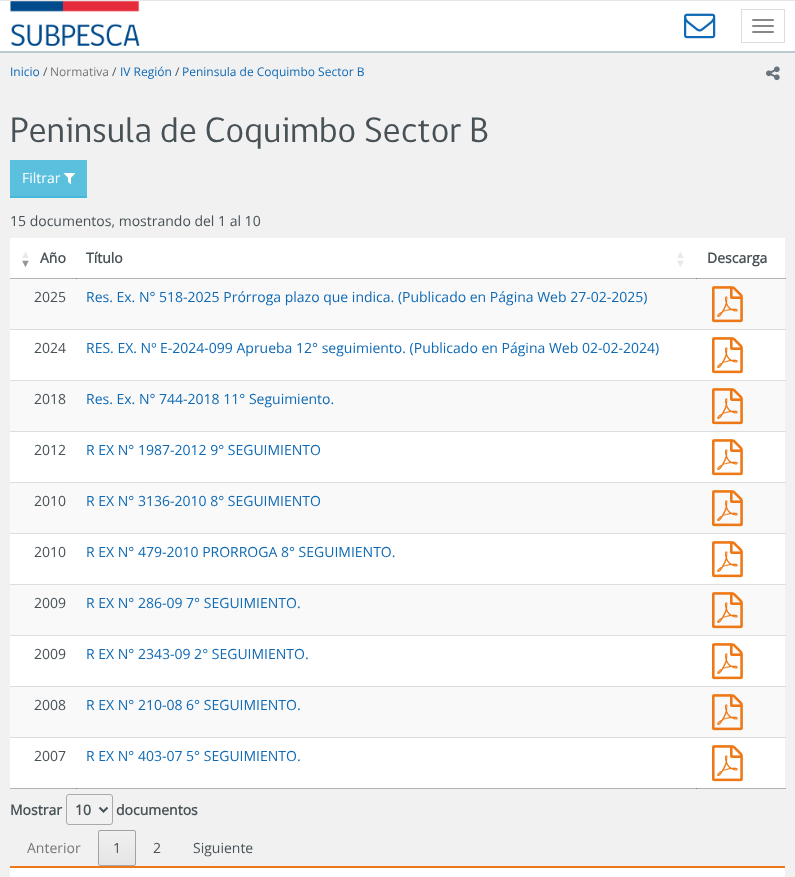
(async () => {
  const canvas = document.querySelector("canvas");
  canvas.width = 795;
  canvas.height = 877;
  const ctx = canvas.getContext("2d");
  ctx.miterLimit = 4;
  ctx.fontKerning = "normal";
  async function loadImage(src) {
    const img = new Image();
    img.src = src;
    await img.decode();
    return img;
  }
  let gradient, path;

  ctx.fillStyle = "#f1f1f1";
  ctx.fillRect(0, 0, 795, 877);
  for (const [x, y, w, h, color] of [
    [785, 278, 1, 1, "#a9a9a9"],
    [785, 788, 1, 1, "#a9a9a9"],
    [0, 1, 795, 50, "#ffffff"],
    [0, 51, 795, 2, "#bdc9d1"],
    [0, 0, 795, 1, "#e6e6e6"],
  ]) {
    ctx.fillStyle = color;
    ctx.fillRect(x, y, w, h);
  }
  ctx.drawImage(await loadImage("img/1.png"), 10, 1, 130, 45);
  ctx.strokeStyle = "#dddddd";
  ctx.strokeRect(741.5, 9.5, 43, 33);
  ctx.fillStyle = "#888888";
  ctx.beginPath();
  ctx.roundRect(752, 19, 22, 2, 1);
  ctx.fill();
  ctx.beginPath();
  ctx.roundRect(752, 25, 22, 2, 1);
  ctx.fill();
  ctx.beginPath();
  ctx.roundRect(752, 31, 22, 2, 1);
  ctx.fill();
  ctx.drawImage(await loadImage("img/2.png"), 684, 13, 32, 26);
  ctx.drawImage(await loadImage("img/3.png"), 766, 66, 14, 15);
  ctx.fillStyle = "#5bc0de";
  ctx.fillRect(10, 160, 77, 36);
  ctx.fillStyle = "#46b8da";
  ctx.fillRect(10, 196, 77, 2);
  ctx.drawImage(await loadImage("img/4.png"), 64, 173, 11, 11);
  for (const [x, y, w, h, color] of [
    [10, 238, 775, 550, "#ffffff"],
    [10, 278, 775, 1, "#b3b3b3"],
    [76, 278, 1, 1, "#7d7d7d"],
    [696, 278, 1, 1, "#7d7d7d"],
    [10, 788, 775, 1, "#b3b3b3"],
    [76, 788, 1, 1, "#7d7d7d"],
    [696, 788, 1, 1, "#7d7d7d"],
    [10, 279, 775, 50, "#f9f9f9"],
  ]) {
    ctx.fillStyle = color;
    ctx.fillRect(x, y, w, h);
  }
  ctx.drawImage(await loadImage("img/5.png"), 712, 286, 31, 37);
  ctx.fillStyle = "#dddddd";
  ctx.fillRect(10, 329, 776, 1);
  ctx.drawImage(await loadImage("img/6.png"), 712, 337, 31, 37);
  ctx.fillStyle = "#f9f9f9";
  ctx.fillRect(10, 381, 775, 50);
  ctx.fillStyle = "#dddddd";
  ctx.fillRect(10, 380, 776, 1);
  ctx.drawImage(await loadImage("img/5.png"), 712, 388, 31, 37);
  ctx.fillRect(10, 431, 776, 1);
  ctx.drawImage(await loadImage("img/6.png"), 712, 439, 31, 37);
  ctx.fillStyle = "#f9f9f9";
  ctx.fillRect(10, 483, 775, 50);
  ctx.fillStyle = "#dddddd";
  ctx.fillRect(10, 482, 776, 1);
  ctx.drawImage(await loadImage("img/5.png"), 712, 490, 31, 37);
  ctx.fillRect(10, 533, 776, 1);
  ctx.drawImage(await loadImage("img/6.png"), 712, 541, 31, 37);
  ctx.fillStyle = "#f9f9f9";
  ctx.fillRect(10, 585, 775, 50);
  ctx.fillStyle = "#dddddd";
  ctx.fillRect(10, 584, 776, 1);
  ctx.drawImage(await loadImage("img/5.png"), 712, 592, 31, 37);
  ctx.fillRect(10, 635, 776, 1);
  ctx.drawImage(await loadImage("img/6.png"), 712, 643, 31, 37);
  ctx.fillStyle = "#f9f9f9";
  ctx.fillRect(10, 687, 775, 50);
  ctx.fillStyle = "#dddddd";
  ctx.fillRect(10, 686, 776, 1);
  ctx.drawImage(await loadImage("img/5.png"), 712, 694, 31, 37);
  ctx.fillRect(10, 737, 776, 1);
  ctx.drawImage(await loadImage("img/6.png"), 712, 745, 31, 37);
  ctx.beginPath();
  ctx.roundRect(66.5, 794.5, 46, 30, 2.5);
  ctx.strokeStyle = "#aaaaaa";
  ctx.stroke();
  path = new Path2D("M99.5 807.5L103.5 811.5L107.5 807.5");
  ctx.strokeStyle = "#475156";
  ctx.lineWidth = 2;
  ctx.stroke(path);
  ctx.save();
  ctx.beginPath();
  ctx.roundRect(98, 830, 38, 36, 2);
  ctx.clip();
  gradient = ctx.createLinearGradient(117, 797, 117, 831);
  gradient.addColorStop(0, "#f0f0f0");
  gradient.addColorStop(1, "#e5e5e5");
  ctx.fillStyle = gradient;
  ctx.fillRect(98, 830, 38, 1);
  gradient = ctx.createLinearGradient(117, 831, 117, 865);
  gradient.addColorStop(0, "#f0f0f0");
  gradient.addColorStop(1, "#e5e5e5");
  ctx.fillStyle = gradient;
  ctx.fillRect(98, 831, 38, 34);
  ctx.restore();
  ctx.beginPath();
  ctx.roundRect(98.5, 830.5, 37, 35, 1.5);
  ctx.strokeStyle = "rgba(0, 0, 0, 0.3)";
  ctx.lineWidth = 1;
  ctx.stroke();
  ctx.fillStyle = "#ffffff";
  ctx.fillRect(10, 868, 775, 9);
  ctx.fillStyle = "#ee7815";
  ctx.fillRect(10, 866, 775, 2);
  ctx.font = "12px Open Sans";
  ctx.fillStyle = "#0f69b4";
  ctx.fillText("Inicio", 10, 76);
  ctx.fillStyle = "#475156";
  ctx.fillText("/", 43, 76);
  ctx.fillStyle = "#777777";
  ctx.fillText("Normativa", 50, 76);
  ctx.fillStyle = "#475156";
  ctx.fillText("/", 112, 76);
  ctx.fillStyle = "#0f69b4";
  ctx.fillText("IV Región", 120, 76);
  ctx.fillStyle = "#475156";
  ctx.fillText("/", 175, 76);
  ctx.fillStyle = "#0f69b4";
  ctx.fillText("Peninsula de Coquimbo Sector B", 182, 76);
  ctx.font = "36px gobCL";
  ctx.fillStyle = "#475156";
  ctx.fillText("Peninsula de Coquimbo Sector B", 10, 142);
  ctx.font = "14px Open Sans";
  ctx.fillStyle = "#ffffff";
  ctx.fillText("Filtrar", 22, 183);
  ctx.fillStyle = "#475156";
  ctx.fillText("15 documentos, mostrando del 1 al 10", 10, 226);
  ctx.font = "bold 11px Liberation Sans";
  ctx.fillStyle = "#e8e9ea";
  ctx.fillText("▲", 20, 258);
  ctx.fillStyle = "#91979a";
  ctx.fillText("▼", 20, 267);
  ctx.font = "bold 14px Open Sans";
  ctx.fillStyle = "#475156";
  ctx.fillText("Año", 40, 263);
  ctx.fillText("Título", 86, 263);
  ctx.font = "bold 11px Liberation Sans";
  ctx.fillStyle = "#e8e9ea";
  ctx.fillText("▲", 675, 258);
  ctx.fillText("▼", 675, 267);
  ctx.font = "bold 14px Open Sans";
  ctx.fillStyle = "#475156";
  ctx.fillText("Descarga", 707, 263);
  ctx.font = "14px Open Sans";
  ctx.fillText("2025", 34, 302);
  ctx.fillStyle = "#0f69b4";
  ctx.fillText("Res. Ex. N° 518-2025 Prórroga plazo que indica. (Publicado en Página Web 27-02-2025)", 86, 302);
  ctx.fillStyle = "#475156";
  ctx.fillText("2024", 34, 353);
  ctx.fillStyle = "#0f69b4";
  ctx.fillText("RES. EX. Nº E-2024-099 Aprueba 12° seguimiento. (Publicado en Página Web 02-02-2024)", 86, 353);
  ctx.fillStyle = "#475156";
  ctx.fillText("2018", 34, 404);
  ctx.fillStyle = "#0f69b4";
  ctx.fillText("Res. Ex. N° 744-2018 11° Seguimiento.", 86, 404);
  ctx.fillStyle = "#475156";
  ctx.fillText("2012", 34, 455);
  ctx.fillStyle = "#0f69b4";
  ctx.fillText("R EX N° 1987-2012 9° SEGUIMIENTO", 86, 455);
  ctx.fillStyle = "#475156";
  ctx.fillText("2010", 34, 506);
  ctx.fillStyle = "#0f69b4";
  ctx.fillText("R EX N° 3136-2010 8° SEGUIMIENTO", 86, 506);
  ctx.fillStyle = "#475156";
  ctx.fillText("2010", 34, 557);
  ctx.fillStyle = "#0f69b4";
  ctx.fillText("R EX N° 479-2010 PRORROGA 8° SEGUIMIENTO.", 86, 557);
  ctx.fillStyle = "#475156";
  ctx.fillText("2009", 34, 608);
  ctx.fillStyle = "#0f69b4";
  ctx.fillText("R EX N° 286-09 7° SEGUIMIENTO.", 86, 608);
  ctx.fillStyle = "#475156";
  ctx.fillText("2009", 34, 659);
  ctx.fillStyle = "#0f69b4";
  ctx.fillText("R EX N° 2343-09 2° SEGUIMIENTO.", 86, 659);
  ctx.fillStyle = "#475156";
  ctx.fillText("2008", 34, 710);
  ctx.fillStyle = "#0f69b4";
  ctx.fillText("R EX N° 210-08 6° SEGUIMIENTO.", 86, 710);
  ctx.fillStyle = "#475156";
  ctx.fillText("2007", 34, 761);
  ctx.fillStyle = "#0f69b4";
  ctx.fillText("R EX N° 403-07 5° SEGUIMIENTO.", 86, 761);
  ctx.font = "bold 14px Open Sans";
  ctx.fillStyle = "#475156";
  for (const [text, x, y] of [
    ["Mostrar", 10, 815],
    ["10", 75, 815],
    ["documentos", 116, 815],
  ]) {
    ctx.fillText(text, x, y);
  }
  ctx.font = "14px Open Sans";
  ctx.fillStyle = "#777777";
  ctx.fillText("Anterior", 27, 853);
  ctx.fillStyle = "#475156";
  for (const [text, x, y] of [
    ["1", 113, 853],
    ["2", 153, 853],
    ["Siguiente", 193, 853],
  ]) {
    ctx.fillText(text, x, y);
  }
})();
